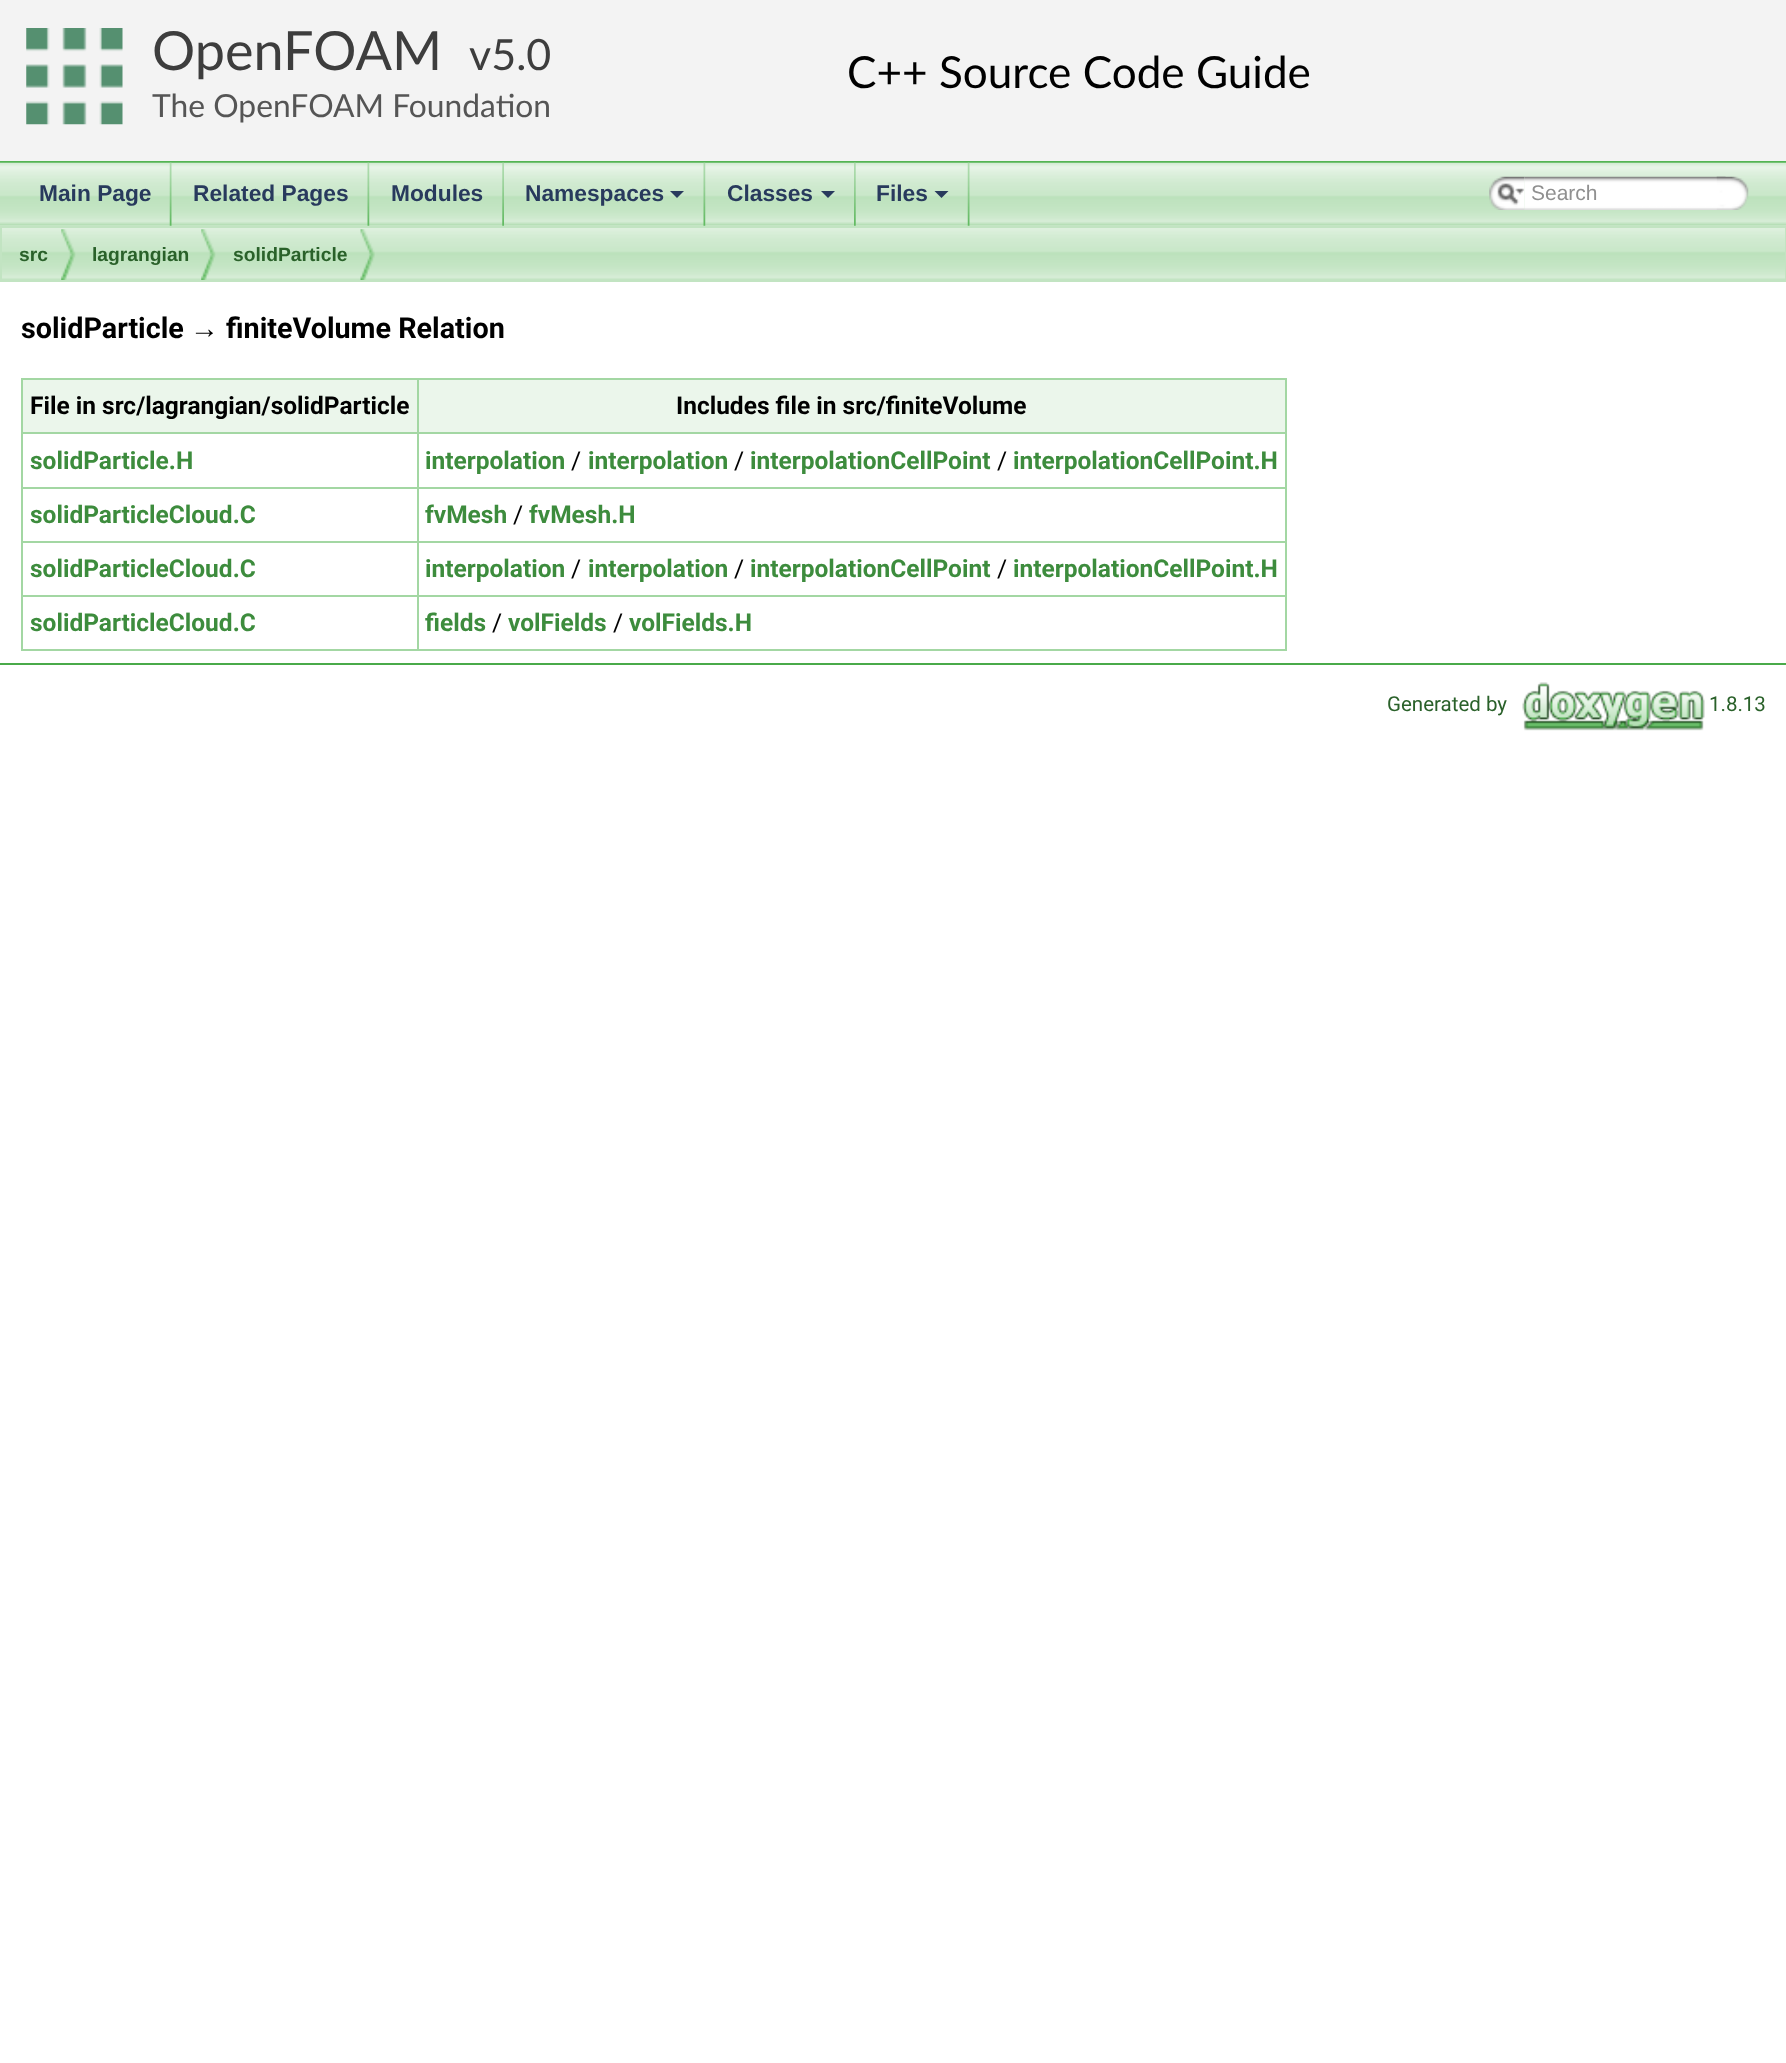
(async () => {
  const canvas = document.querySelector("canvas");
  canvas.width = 1786;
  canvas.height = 2063;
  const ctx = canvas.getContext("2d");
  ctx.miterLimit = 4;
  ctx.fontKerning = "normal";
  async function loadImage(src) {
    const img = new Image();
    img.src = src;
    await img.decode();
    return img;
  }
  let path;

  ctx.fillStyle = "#ffffff";
  ctx.fillRect(0, 0, 1786, 2063);
  ctx.fillStyle = "#f3f3f3";
  ctx.fillRect(0, 0, 1786, 161);
  ctx.fillStyle = "#53b453";
  ctx.fillRect(0, 161, 1786, 2);
  ctx.drawImage(await loadImage("img/1.png"), 26, 28, 97, 97);
  ctx.drawImage(await loadImage("img/11.png"), 0, 225, 1786, 55);
  ctx.drawImage(await loadImage("img/2.png"), 0, 162, 1786, 64);
  ctx.drawImage(await loadImage("img/3.png"), 169, 162, 3, 64);
  ctx.drawImage(await loadImage("img/4.png"), 367, 162, 3, 64);
  ctx.drawImage(await loadImage("img/5.png"), 502, 162, 2, 64);
  ctx.drawImage(await loadImage("img/4.png"), 703, 162, 3, 64);
  ctx.fillStyle = "#283a5d";
  path = new Path2D("M670 191H684L677 198Z");
  ctx.fill(path);
  ctx.drawImage(await loadImage("img/6.png"), 854, 162, 2, 64);
  path = new Path2D("M821 191H835L828 198Z");
  ctx.fill(path);
  ctx.drawImage(await loadImage("img/3.png"), 967, 162, 3, 64);
  path = new Path2D("M934.5 191H948.5L941.5 198Z");
  ctx.fill(path);
  ctx.drawImage(await loadImage("img/7.png"), 1489, 176, 36, 34);
  ctx.drawImage(await loadImage("img/8.png"), 1497, 183, 28, 22);
  ctx.drawImage(await loadImage("img/9.png"), 1524, 176, 202, 34);
  ctx.drawImage(await loadImage("img/10.png"), 1716, 176, 33, 34);
  ctx.strokeStyle = "#c2e4c2";
  ctx.lineWidth = 2;
  ctx.strokeRect(1, 227, 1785, 54);
  ctx.drawImage(await loadImage("img/12.png"), 61, 229, 15, 51);
  ctx.drawImage(await loadImage("img/12.png"), 201, 229, 15, 51);
  ctx.drawImage(await loadImage("img/13.png"), 360, 229, 15, 51);
  for (const [x, y, w, h, color] of [
    [21, 378, 1265, 2, "#a3d7a3"],
    [1285, 378, 2, 273, "#a3d7a3"],
    [21, 649, 1265, 2, "#a3d7a3"],
    [21, 378, 2, 273, "#a3d7a3"],
    [23, 380, 394, 52, "#ebf6eb"],
    [419, 380, 866, 52, "#ebf6eb"],
    [21, 432, 1265, 2, "#a3d7a3"],
    [21, 487, 1265, 2, "#a3d7a3"],
    [21, 541, 1265, 2, "#a3d7a3"],
    [21, 595, 1265, 2, "#a3d7a3"],
    [417, 378, 2, 273, "#a3d7a3"],
    [0, 663, 1786, 2, "#4aaa4a"],
  ]) {
    ctx.fillStyle = color;
    ctx.fillRect(x, y, w, h);
  }
  ctx.drawImage(await loadImage("img/14.png"), 1522, 682, 183, 49);
  ctx.font = "54px Lato";
  ctx.fillStyle = "#3d3d3d";
  ctx.fillText("OpenFOAM", 152, 70);
  ctx.font = "43px Lato";
  ctx.fillText("v5.0", 469, 70);
  ctx.font = "31.8px Lato";
  ctx.fillStyle = "#555555";
  ctx.fillText("The OpenFOAM Foundation", 152, 117);
  ctx.font = "44.1px Lato";
  ctx.fillStyle = "#000000";
  ctx.fillText("C++ Source Code Guide", 847, 88);
  ctx.font = "bold 22.75px Liberation Sans";
  ctx.fillStyle = "#283a5d";
  for (const [text, x, y] of [
    ["Main Page", 39, 201],
    ["Related Pages", 193, 201],
    ["Modules", 391, 201],
    ["Namespaces", 525, 201],
    ["Classes", 727, 201],
    ["Files", 876, 201],
  ]) {
    ctx.fillText(text, x, y);
  }
  ctx.font = "21px Liberation Sans";
  ctx.fillStyle = "#909090";
  ctx.fillText("Search", 1531, 200);
  ctx.font = "bold 19.25px Liberation Sans";
  ctx.fillStyle = "#2a612a";
  for (const [text, x, y] of [
    ["src", 19, 261],
    ["lagrangian", 92, 261],
    ["solidParticle", 233, 261],
  ]) {
    ctx.fillText(text, x, y);
  }
  ctx.font = "bold 28.75px Roboto";
  ctx.fillStyle = "#000000";
  ctx.fillText("solidParticle", 21, 338);
  ctx.font = "bold 28.75px Liberation Sans";
  ctx.fillText("→", 190, 338);
  ctx.font = "bold 28.75px Roboto";
  ctx.fillText("finiteVolume Relation", 226, 338);
  ctx.font = "bold 24.5px Roboto";
  ctx.fillText("File in src/lagrangian/solidParticle", 30, 414);
  ctx.fillText("Includes file in src/finiteVolume", 676, 414);
  ctx.fillStyle = "#3d8c3d";
  ctx.fillText("solidParticle.H", 30, 469);
  ctx.fillText("interpolation", 425, 469);
  ctx.font = "24.5px Roboto";
  ctx.fillStyle = "#000000";
  ctx.fillText("/", 571, 469);
  ctx.font = "bold 24.5px Roboto";
  ctx.fillStyle = "#3d8c3d";
  ctx.fillText("interpolation", 588, 469);
  ctx.font = "24.5px Roboto";
  ctx.fillStyle = "#000000";
  ctx.fillText("/", 734, 469);
  ctx.font = "bold 24.5px Roboto";
  ctx.fillStyle = "#3d8c3d";
  ctx.fillText("interpolationCellPoint", 750, 469);
  ctx.font = "24.5px Roboto";
  ctx.fillStyle = "#000000";
  ctx.fillText("/", 997, 469);
  ctx.font = "bold 24.5px Roboto";
  ctx.fillStyle = "#3d8c3d";
  for (const [text, x, y] of [
    ["interpolationCellPoint.H", 1013, 469],
    ["solidParticleCloud.C", 30, 523],
    ["fvMesh", 425, 523],
  ]) {
    ctx.fillText(text, x, y);
  }
  ctx.font = "24.5px Roboto";
  ctx.fillStyle = "#000000";
  ctx.fillText("/", 513, 523);
  ctx.font = "bold 24.5px Roboto";
  ctx.fillStyle = "#3d8c3d";
  for (const [text, x, y] of [
    ["fvMesh.H", 529, 523],
    ["solidParticleCloud.C", 30, 577],
    ["interpolation", 425, 577],
  ]) {
    ctx.fillText(text, x, y);
  }
  ctx.font = "24.5px Roboto";
  ctx.fillStyle = "#000000";
  ctx.fillText("/", 571, 577);
  ctx.font = "bold 24.5px Roboto";
  ctx.fillStyle = "#3d8c3d";
  ctx.fillText("interpolation", 588, 577);
  ctx.font = "24.5px Roboto";
  ctx.fillStyle = "#000000";
  ctx.fillText("/", 734, 577);
  ctx.font = "bold 24.5px Roboto";
  ctx.fillStyle = "#3d8c3d";
  ctx.fillText("interpolationCellPoint", 750, 577);
  ctx.font = "24.5px Roboto";
  ctx.fillStyle = "#000000";
  ctx.fillText("/", 997, 577);
  ctx.font = "bold 24.5px Roboto";
  ctx.fillStyle = "#3d8c3d";
  for (const [text, x, y] of [
    ["interpolationCellPoint.H", 1013, 577],
    ["solidParticleCloud.C", 30, 631],
    ["fields", 425, 631],
  ]) {
    ctx.fillText(text, x, y);
  }
  ctx.font = "24.5px Roboto";
  ctx.fillStyle = "#000000";
  ctx.fillText("/", 492, 631);
  ctx.font = "bold 24.5px Roboto";
  ctx.fillStyle = "#3d8c3d";
  ctx.fillText("volFields", 508, 631);
  ctx.font = "24.5px Roboto";
  ctx.fillStyle = "#000000";
  ctx.fillText("/", 613, 631);
  ctx.font = "bold 24.5px Roboto";
  ctx.fillStyle = "#3d8c3d";
  ctx.fillText("volFields.H", 629, 631);
  ctx.font = "20.5px Roboto";
  ctx.fillStyle = "#2a612a";
  ctx.fillText("Generated by", 1387, 711);
  ctx.fillText("1.8.13", 1709, 711);
})();
